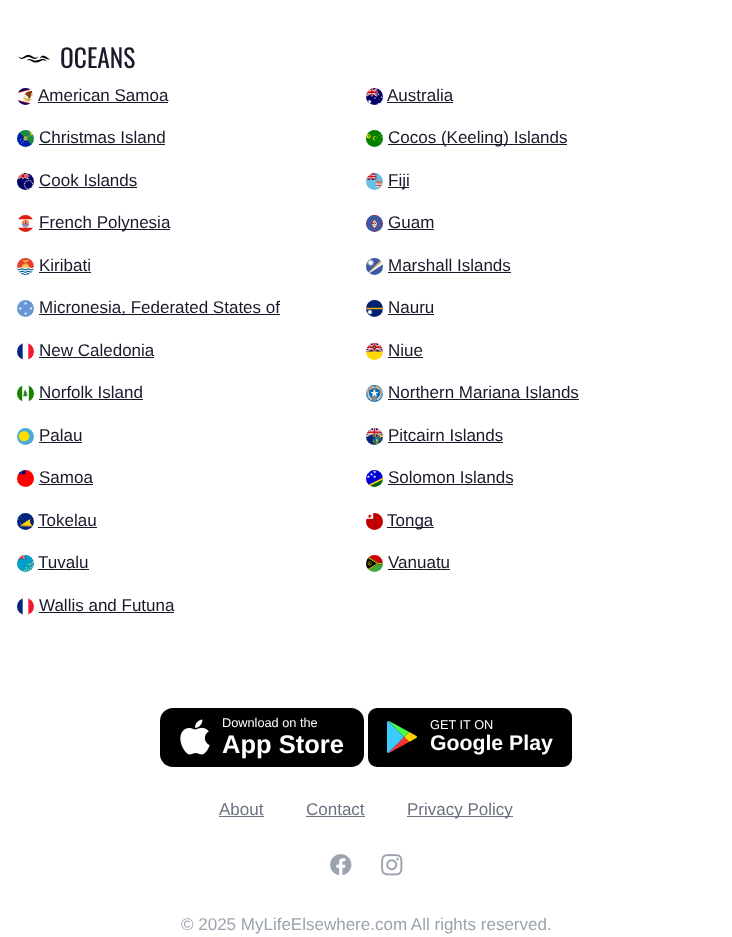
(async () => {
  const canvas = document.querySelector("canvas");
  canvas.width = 732;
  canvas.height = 937;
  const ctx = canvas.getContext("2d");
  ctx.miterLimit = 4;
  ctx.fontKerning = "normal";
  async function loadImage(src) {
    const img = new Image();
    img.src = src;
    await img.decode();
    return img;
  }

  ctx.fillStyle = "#ffffff";
  ctx.fillRect(0, 0, 732, 937);
  ctx.drawImage(await loadImage("img/1.png"), 18, 54, 32, 9);
  ctx.drawImage(await loadImage("img/2.png"), 17, 88, 17, 17);
  ctx.fillStyle = "#181a2a";
  ctx.fillRect(38, 102, 130, 1);
  ctx.drawImage(await loadImage("img/3.png"), 366, 88, 17, 17);
  ctx.fillRect(387, 102, 66, 1);
  ctx.drawImage(await loadImage("img/4.png"), 17, 130, 17, 17);
  ctx.fillRect(39, 144, 126, 1);
  ctx.drawImage(await loadImage("img/5.png"), 366, 130, 17, 17);
  ctx.fillRect(388, 144, 179, 1);
  ctx.drawImage(await loadImage("img/6.png"), 17, 173, 17, 17);
  ctx.fillRect(39, 187, 98, 1);
  ctx.drawImage(await loadImage("img/7.png"), 366, 173, 17, 17);
  ctx.fillRect(388, 187, 21, 1);
  ctx.drawImage(await loadImage("img/8.png"), 18, 215, 16, 17);
  ctx.fillRect(39, 229, 131, 1);
  ctx.drawImage(await loadImage("img/9.png"), 366, 215, 17, 17);
  ctx.fillRect(388, 229, 46, 1);
  ctx.drawImage(await loadImage("img/10.png"), 17, 258, 17, 17);
  ctx.fillRect(39, 272, 52, 1);
  ctx.drawImage(await loadImage("img/11.png"), 366, 258, 17, 17);
  ctx.fillRect(388, 272, 123, 1);
  ctx.drawImage(await loadImage("img/12.png"), 17, 300, 17, 17);
  ctx.fillRect(39, 314, 241, 1);
  ctx.drawImage(await loadImage("img/13.png"), 366, 300, 17, 17);
  ctx.fillRect(388, 314, 46, 1);
  ctx.drawImage(await loadImage("img/14.png"), 17, 343, 17, 17);
  ctx.fillRect(39, 357, 115, 1);
  ctx.drawImage(await loadImage("img/15.png"), 366, 343, 17, 17);
  ctx.fillRect(388, 357, 35, 1);
  ctx.drawImage(await loadImage("img/16.png"), 17, 385, 17, 17);
  ctx.fillRect(39, 399, 104, 1);
  ctx.drawImage(await loadImage("img/17.png"), 366, 385, 17, 17);
  ctx.fillRect(388, 399, 191, 1);
  ctx.drawImage(await loadImage("img/18.png"), 17, 428, 17, 17);
  ctx.fillRect(39, 442, 43, 1);
  ctx.drawImage(await loadImage("img/19.png"), 366, 428, 17, 17);
  ctx.fillRect(388, 442, 115, 1);
  ctx.drawImage(await loadImage("img/20.png"), 17, 470, 17, 17);
  ctx.fillRect(39, 484, 54, 1);
  ctx.drawImage(await loadImage("img/21.png"), 366, 470, 17, 17);
  ctx.fillRect(388, 484, 125, 1);
  ctx.drawImage(await loadImage("img/22.png"), 17, 513, 17, 17);
  ctx.fillRect(38, 527, 59, 1);
  ctx.drawImage(await loadImage("img/23.png"), 366, 513, 17, 17);
  ctx.fillRect(387, 527, 47, 1);
  ctx.drawImage(await loadImage("img/24.png"), 17, 555, 17, 17);
  ctx.fillRect(38, 569, 51, 1);
  ctx.drawImage(await loadImage("img/25.png"), 366, 555, 17, 17);
  ctx.fillRect(388, 569, 62, 1);
  ctx.drawImage(await loadImage("img/14.png"), 17, 598, 17, 17);
  ctx.fillRect(39, 612, 135, 1);
  ctx.fillStyle = "#000000";
  ctx.beginPath();
  ctx.roundRect(160, 708, 204, 59, 13);
  ctx.fill();
  ctx.drawImage(await loadImage("img/26.png"), 180, 719, 30, 36);
  ctx.beginPath();
  ctx.roundRect(368, 708, 204, 59, 9);
  ctx.fill();
  ctx.drawImage(await loadImage("img/27.png"), 387, 721, 30, 32);
  for (const [x, y, w, h, color] of [
    [219, 816, 45, 1, "#6b7280"],
    [306, 816, 59, 1, "#6b7280"],
    [407, 816, 106, 1, "#6b7280"],
  ]) {
    ctx.fillStyle = color;
    ctx.fillRect(x, y, w, h);
  }
  ctx.drawImage(await loadImage("img/28.png"), 330, 854, 22, 22);
  ctx.drawImage(await loadImage("img/29.png"), 381, 854, 22, 22);
  ctx.font = "25.5px Oswald";
  ctx.fillStyle = "#181a2a";
  ctx.fillText("OCEANS", 60, 68);
  ctx.font = "17px Liberation Sans";
  for (const [text, x, y] of [
    ["American Samoa", 38, 101],
    ["Australia", 387, 101],
    ["Christmas Island", 39, 143],
    ["Cocos (Keeling) Islands", 388, 143],
    ["Cook Islands", 39, 186],
    ["Fiji", 388, 186],
    ["French Polynesia", 39, 228],
    ["Guam", 388, 228],
    ["Kiribati", 39, 271],
    ["Marshall Islands", 388, 271],
    ["Micronesia, Federated States of", 39, 313],
    ["Nauru", 388, 313],
    ["New Caledonia", 39, 356],
    ["Niue", 388, 356],
    ["Norfolk Island", 39, 398],
    ["Northern Mariana Islands", 388, 398],
    ["Palau", 39, 441],
    ["Pitcairn Islands", 388, 441],
    ["Samoa", 39, 483],
    ["Solomon Islands", 388, 483],
    ["Tokelau", 38, 526],
    ["Tonga", 387, 526],
    ["Tuvalu", 38, 568],
    ["Vanuatu", 388, 568],
    ["Wallis and Futuna", 39, 611],
  ]) {
    ctx.fillText(text, x, y);
  }
  ctx.font = "12.75px Liberation Sans";
  ctx.fillStyle = "#ffffff";
  ctx.fillText("Download on the", 222, 727);
  ctx.font = "bold 25.5px Liberation Sans";
  ctx.fillText("App Store", 222, 753);
  ctx.font = "12.75px Liberation Sans";
  ctx.fillText("GET IT ON", 430, 729);
  ctx.font = "bold 21.25px Liberation Sans";
  ctx.fillText("Google Play", 430, 750);
  ctx.font = "17px Liberation Sans";
  ctx.fillStyle = "#6b7280";
  for (const [text, x, y] of [
    ["About", 219, 815],
    ["Contact", 306, 815],
    ["Privacy Policy", 407, 815],
  ]) {
    ctx.fillText(text, x, y);
  }
  ctx.fillStyle = "#9ca3af";
  ctx.fillText("© 2025 MyLifeElsewhere.com All rights reserved.", 181, 930);
})();
